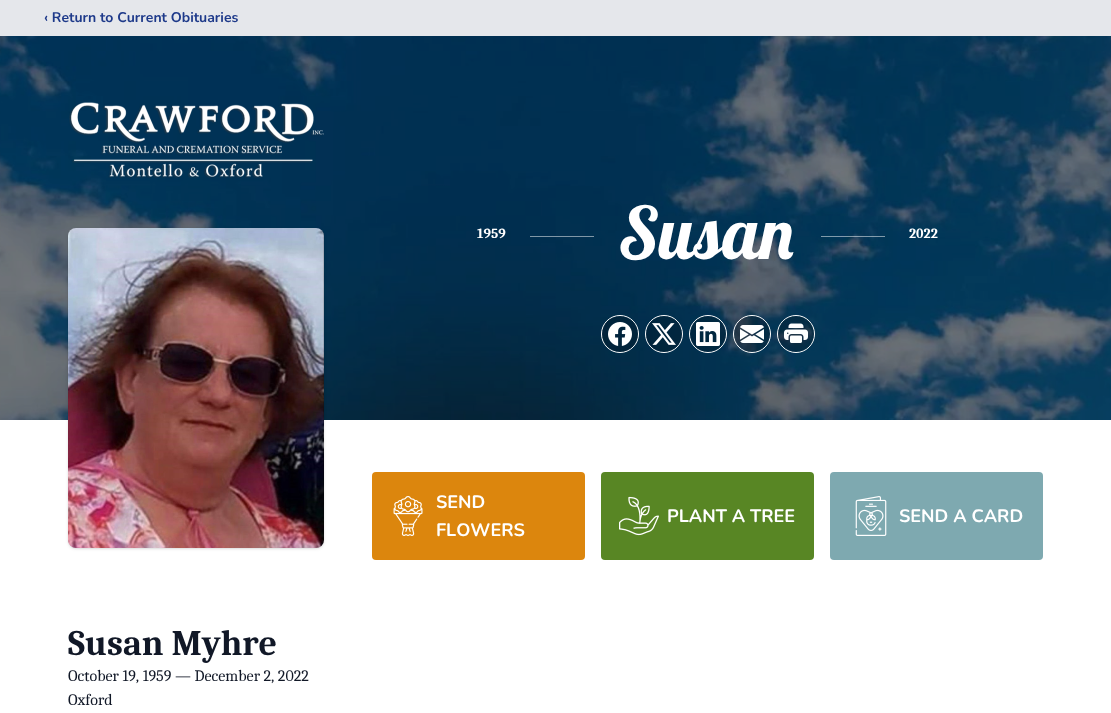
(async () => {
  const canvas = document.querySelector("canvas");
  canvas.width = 1111;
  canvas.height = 713;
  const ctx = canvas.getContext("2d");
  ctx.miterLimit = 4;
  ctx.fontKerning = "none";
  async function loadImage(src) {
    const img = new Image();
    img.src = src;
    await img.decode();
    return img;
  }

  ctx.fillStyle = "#ffffff";
  ctx.fillRect(0, 0, 1111, 713);
  ctx.fillStyle = "#e5e7eb";
  ctx.fillRect(0, 0, 1111, 36);
  ctx.drawImage(await loadImage("img/1.png"), 0, 36, 1111, 384);
  ctx.drawImage(await loadImage("img/2.png"), 69, 102, 255, 76);
  ctx.fillStyle = "rgba(0, 0, 0, 0.1)";
  ctx.filter = "blur(1px)";
  ctx.beginPath();
  ctx.roundRect(69, 230, 254, 318, 7);
  ctx.fill();
  ctx.filter = "none";
  ctx.filter = "blur(1.5px)";
  ctx.beginPath();
  ctx.roundRect(68, 229, 256, 320, 8);
  ctx.fill();
  ctx.filter = "none";
  ctx.drawImage(await loadImage("img/3.png"), 68, 228, 256, 320);
  ctx.fillStyle = "#8097a7";
  ctx.fillRect(530, 236, 64, 1);
  ctx.fillStyle = "rgba(255, 255, 255, 0.5)";
  ctx.fillRect(821, 236, 64, 1);
  ctx.beginPath();
  ctx.arc(620, 334, 18.5, 0, Math.PI * 2);
  ctx.strokeStyle = "#ffffff";
  ctx.stroke();
  ctx.fillStyle = "rgba(0, 0, 0, 0.2)";
  ctx.beginPath();
  ctx.arc(620, 334, 18, 0, Math.PI * 2);
  ctx.fill();
  ctx.drawImage(await loadImage("img/4.png"), 608, 322, 24, 24);
  ctx.beginPath();
  ctx.arc(664, 334, 18.5, 0, Math.PI * 2);
  ctx.stroke();
  ctx.beginPath();
  ctx.arc(664, 334, 18, 0, Math.PI * 2);
  ctx.fill();
  ctx.drawImage(await loadImage("img/5.png"), 652, 323, 24, 22);
  ctx.beginPath();
  ctx.arc(708, 334, 18.5, 0, Math.PI * 2);
  ctx.stroke();
  ctx.beginPath();
  ctx.arc(708, 334, 18, 0, Math.PI * 2);
  ctx.fill();
  ctx.drawImage(await loadImage("img/6.png"), 696, 322, 24, 24);
  ctx.beginPath();
  ctx.arc(752, 334, 18.5, 0, Math.PI * 2);
  ctx.stroke();
  ctx.beginPath();
  ctx.arc(752, 334, 18, 0, Math.PI * 2);
  ctx.fill();
  ctx.drawImage(await loadImage("img/7.png"), 740, 325, 24, 18);
  ctx.beginPath();
  ctx.arc(796, 334, 18.5, 0, Math.PI * 2);
  ctx.stroke();
  ctx.beginPath();
  ctx.arc(796, 334, 18, 0, Math.PI * 2);
  ctx.fill();
  ctx.drawImage(await loadImage("img/8.png"), 784, 323, 24, 20);
  ctx.fillStyle = "#dc860d";
  ctx.beginPath();
  ctx.roundRect(372, 472, 213, 88, 4);
  ctx.fill();
  ctx.drawImage(await loadImage("img/9.png"), 393, 496, 30, 40);
  ctx.fillStyle = "#588624";
  ctx.beginPath();
  ctx.roundRect(601, 472, 213, 88, 4);
  ctx.fill();
  ctx.drawImage(await loadImage("img/10.png"), 619, 496, 40, 40);
  ctx.fillStyle = "#7ea9b0";
  ctx.beginPath();
  ctx.roundRect(830, 472, 213, 88, 4);
  ctx.fill();
  ctx.drawImage(await loadImage("img/11.png"), 855, 496, 32, 40);
  ctx.font = "bold 14px Nunito";
  ctx.fillStyle = "#1e3a8a";
  ctx.fillText("‹ Return to Current Obituaries", 44, 22);
  ctx.font = "bold 14px Caladea";
  ctx.fillStyle = "#ffffff";
  ctx.fillText("1959", 477, 238);
  ctx.font = "72px Lobster";
  ctx.fillText("Susan", 618, 259);
  ctx.font = "bold 14px Caladea";
  ctx.fillText("2022", 909, 238);
  ctx.font = "bold 18px Nunito";
  for (const [text, x, y] of [
    ["SEND", 436, 508],
    ["FLOWERS", 436, 536],
    ["PLANT A TREE", 667, 522],
    ["SEND A CARD", 899, 522],
  ]) {
    ctx.fillText(text, x, y);
  }
  ctx.font = "bold 36px Caladea";
  ctx.fillStyle = "#111827";
  ctx.fillText("Susan Myhre", 68, 655);
  ctx.font = "16px Caladea";
  ctx.fillText("October 19, 1959 — December 2, 2022", 68, 681);
  ctx.fillText("Oxford", 68, 705);
})();
